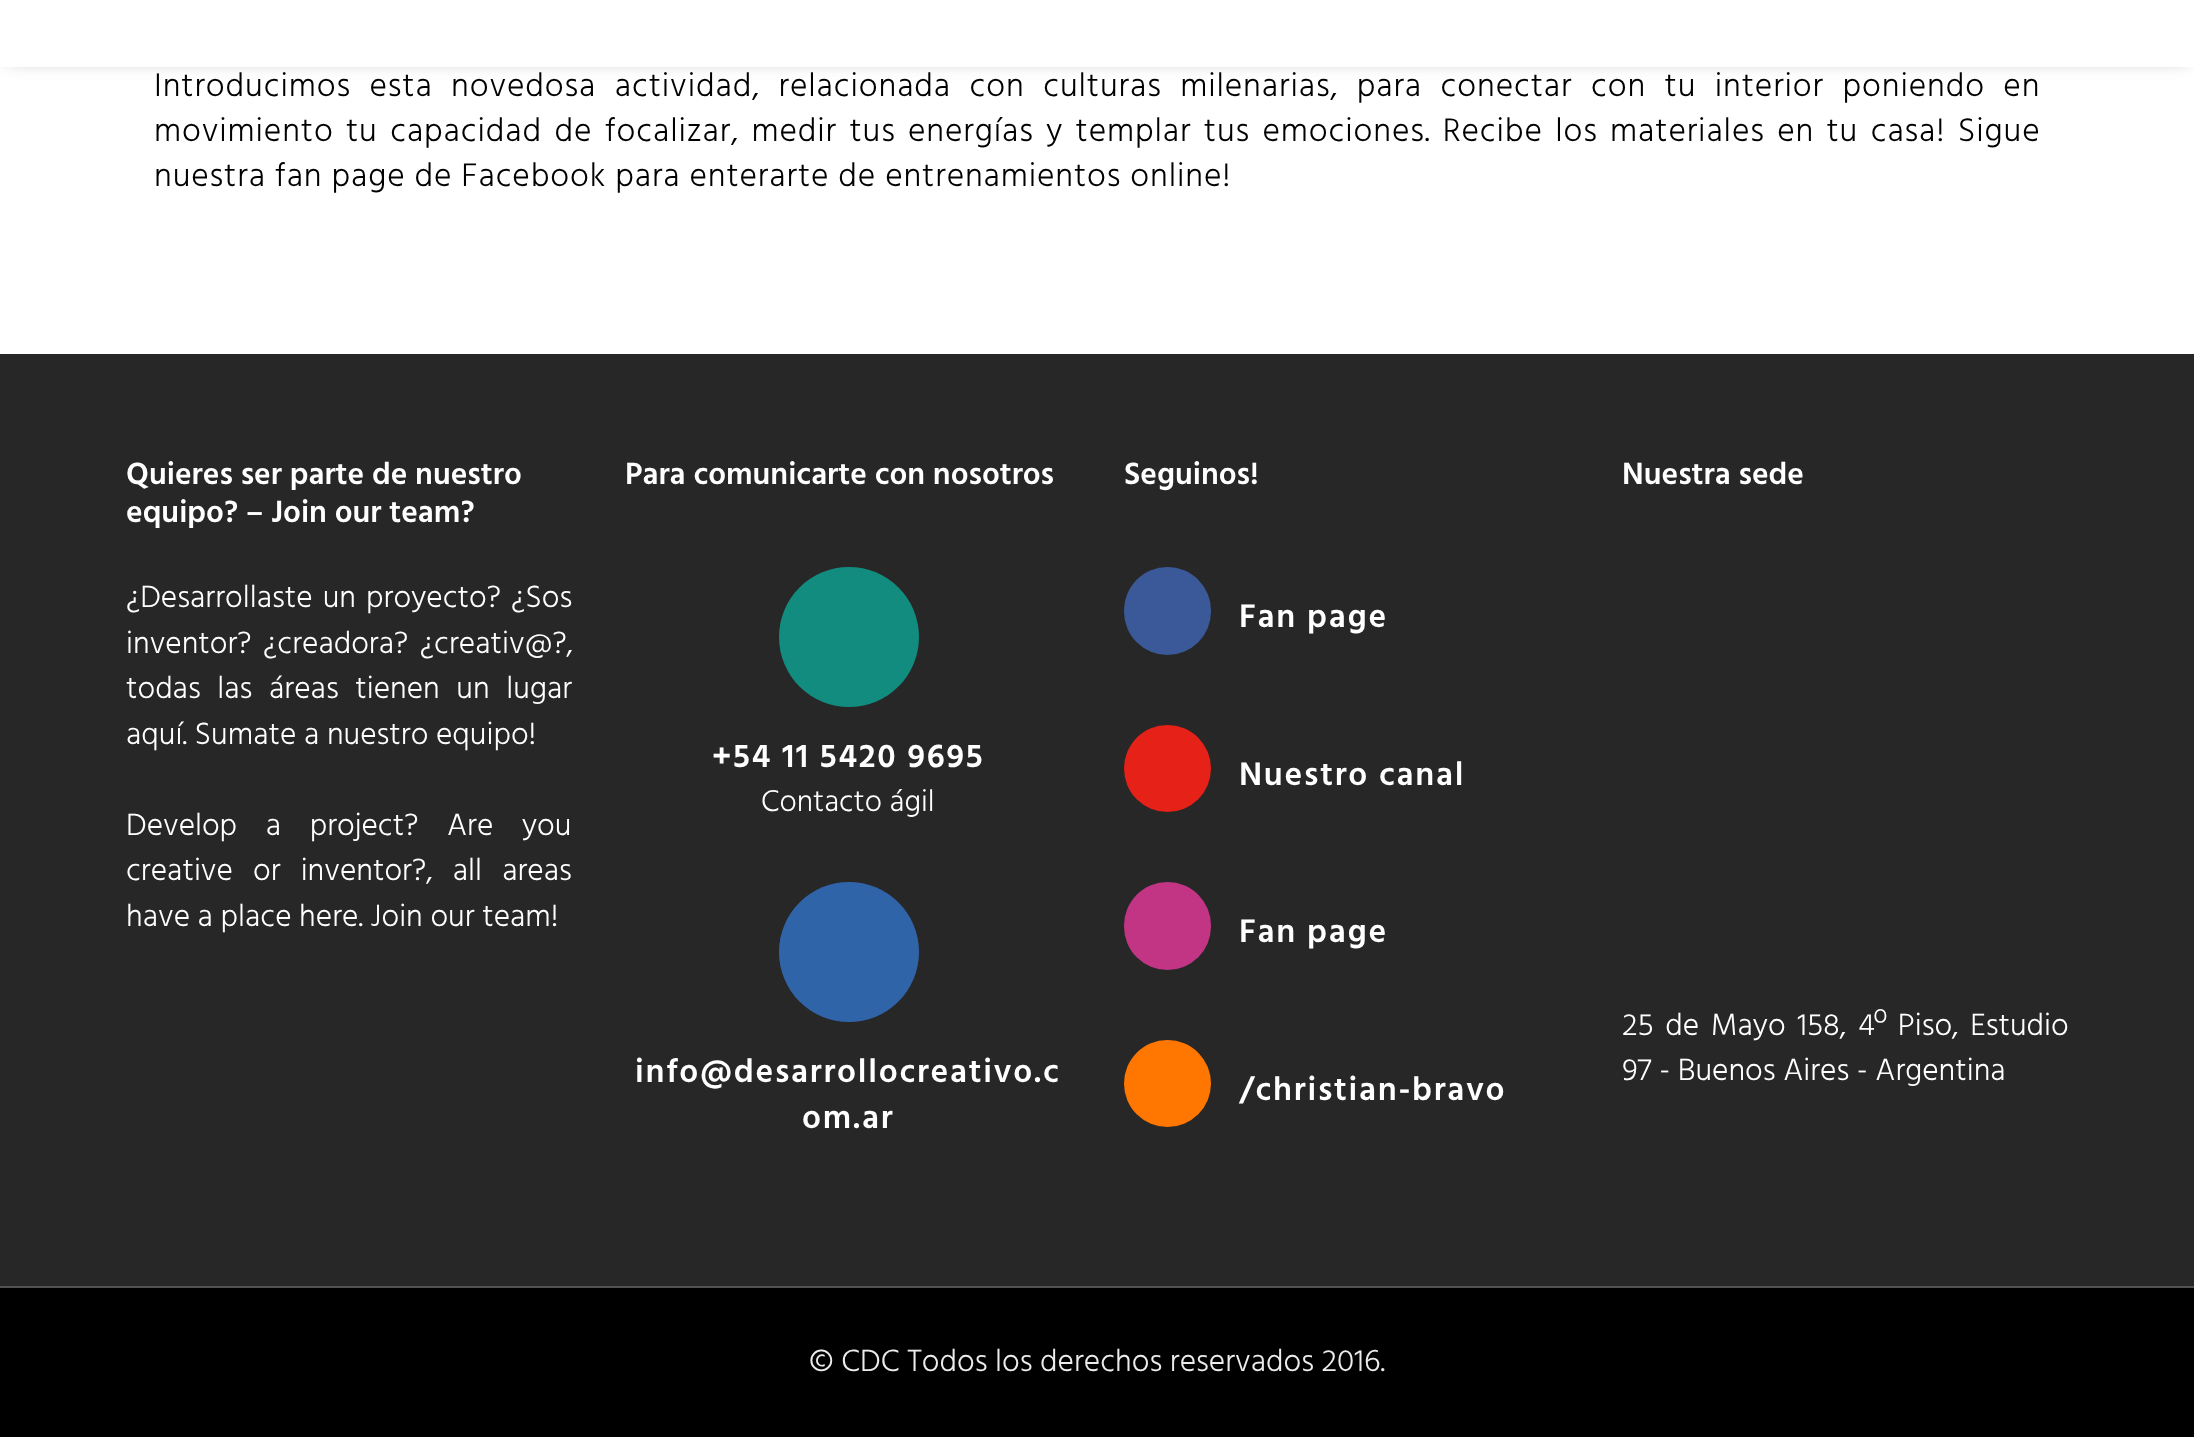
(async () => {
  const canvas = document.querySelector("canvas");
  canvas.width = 2194;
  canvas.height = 1437;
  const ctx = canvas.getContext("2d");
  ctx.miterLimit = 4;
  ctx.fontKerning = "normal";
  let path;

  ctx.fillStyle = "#ffffff";
  ctx.fillRect(0, 0, 2194, 1437);
  ctx.save();
  path = new Path2D("M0 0H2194V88H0ZM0-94H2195V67H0Z");
  ctx.clip(path, "evenodd");
  ctx.fillStyle = "rgba(0, 0, 0, 0.3)";
  ctx.filter = "blur(9px)";
  ctx.beginPath();
  ctx.rect(7, -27, 2181, 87);
  ctx.fill();
  ctx.filter = "none";
  ctx.restore();
  ctx.fillStyle = "#272727";
  ctx.fillRect(0, 354, 2194, 932);
  ctx.fillStyle = "#525252";
  ctx.fillRect(0, 1286, 2194, 2);
  ctx.fillStyle = "#128c7e";
  ctx.beginPath();
  ctx.arc(849, 637, 70, 0, Math.PI * 2);
  ctx.fill();
  ctx.fillStyle = "#3064a9";
  ctx.beginPath();
  ctx.arc(849, 952, 70, 0, Math.PI * 2);
  ctx.fill();
  ctx.fillStyle = "#3b5998";
  ctx.beginPath();
  ctx.roundRect(1124, 567, 87, 88, 43.5);
  ctx.fill();
  ctx.fillStyle = "#e62117";
  ctx.beginPath();
  ctx.arc(1167.5, 768.5, 43.5, 0, Math.PI * 2);
  ctx.fill();
  ctx.fillStyle = "#c13584";
  ctx.beginPath();
  ctx.roundRect(1124, 882, 87, 88, 43.5);
  ctx.fill();
  ctx.fillStyle = "#ff7700";
  ctx.beginPath();
  ctx.arc(1167.5, 1083.5, 43.5, 0, Math.PI * 2);
  ctx.fill();
  ctx.fillStyle = "#000000";
  ctx.fillRect(0, 1288, 2194, 149);
  ctx.letterSpacing = "0.88px";
  ctx.wordSpacing = "9.5px";
  ctx.font = "300 33.6px Hind";
  ctx.fillText("Introducimos esta novedosa actividad, relacionada con culturas milenarias, para conectar con tu interior poniendo en", 154, 96);
  ctx.wordSpacing = "3.4px";
  ctx.fillText("movimiento tu capacidad de focalizar, medir tus energías y templar tus emociones. Recibe los materiales en tu casa! Sigue", 154, 141);
  ctx.wordSpacing = "0px";
  ctx.fillText("nuestra fan page de Facebook para enterarte de entrenamientos online!", 154, 186);
  ctx.letterSpacing = "0px";
  ctx.font = "600 31.5px Hind";
  ctx.fillStyle = "#ffffff";
  ctx.fillText("Quieres ser parte de nuestro", 126, 484);
  ctx.fillText("equipo? – Join our team?", 126, 522);
  ctx.wordSpacing = "2.5px";
  ctx.font = "300 31.5px Hind";
  ctx.fillText("¿Desarrollaste un proyecto? ¿Sos", 126, 607);
  ctx.wordSpacing = "4px";
  ctx.fillText("inventor? ¿creadora? ¿creativ@?,", 126, 653);
  ctx.wordSpacing = "9px";
  ctx.fillText("todas las áreas tienen un lugar", 126, 698);
  ctx.wordSpacing = "0px";
  ctx.fillText("aquí. Sumate a nuestro equipo!", 126, 744);
  ctx.wordSpacing = "21px";
  ctx.fillText("Develop a project? Are you", 126, 835);
  ctx.wordSpacing = "12.5px";
  ctx.fillText("creative or inventor?, all areas", 126, 880);
  ctx.wordSpacing = "0px";
  ctx.fillText("have a place here. Join our team!", 126, 926);
  ctx.font = "600 31.5px Hind";
  ctx.fillText("Para comunicarte con nosotros", 625, 484);
  ctx.letterSpacing = "1.75px";
  ctx.font = "600 33.6px Hind";
  ctx.fillText("+54 11 5420 9695", 712, 767);
  ctx.letterSpacing = "0px";
  ctx.font = "300 30.75px Hind";
  ctx.fillText("Contacto ágil", 761, 811);
  ctx.letterSpacing = "1.75px";
  ctx.font = "600 33.6px Hind";
  ctx.fillText("info@desarrollocreativo.c", 635, 1082);
  ctx.fillText("om.ar", 802, 1128);
  ctx.letterSpacing = "0px";
  ctx.font = "600 31.5px Hind";
  ctx.fillText("Seguinos!", 1124, 484);
  ctx.letterSpacing = "1.75px";
  ctx.font = "600 33.6px Hind";
  for (const [text, x, y] of [
    ["Fan page", 1239, 627],
    ["Nuestro canal", 1239, 785],
    ["Fan page", 1239, 942],
    ["/christian-bravo", 1239, 1100],
  ]) {
    ctx.fillText(text, x, y);
  }
  ctx.letterSpacing = "0px";
  ctx.font = "600 31.5px Hind";
  ctx.fillText("Nuestra sede", 1622, 484);
  ctx.wordSpacing = "4px";
  ctx.font = "300 31.5px Hind";
  ctx.fillText("25 de Mayo 158, 4º Piso, Estudio", 1622, 1035);
  ctx.wordSpacing = "0px";
  ctx.fillText("97 - Buenos Aires - Argentina", 1622, 1080);
  ctx.fillStyle = "#edebeb";
  ctx.fillText("© CDC Todos los derechos reservados 2016.", 809, 1371);
})();
